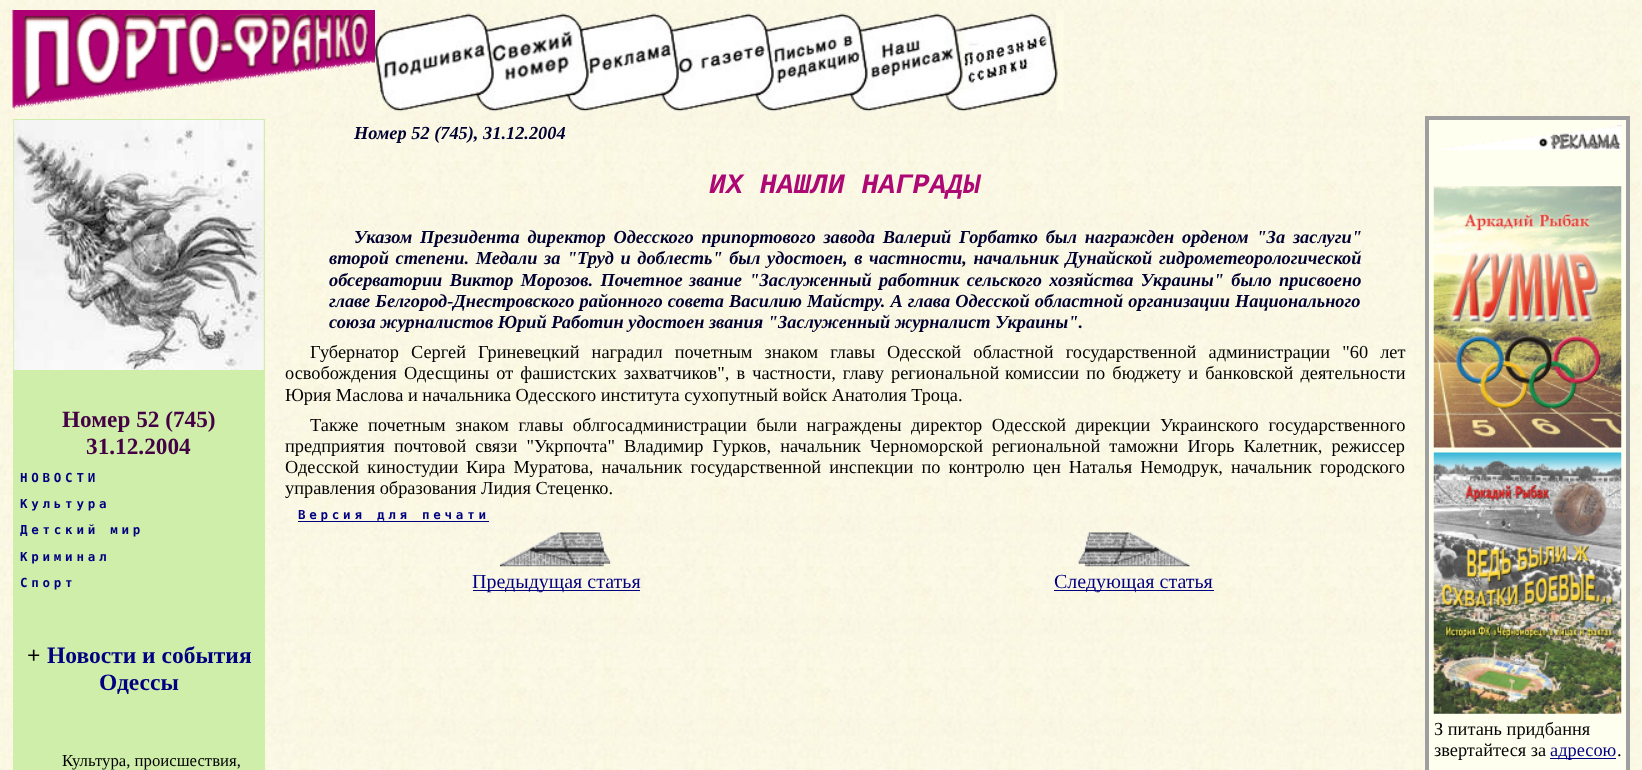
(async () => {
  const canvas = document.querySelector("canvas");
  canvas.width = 1642;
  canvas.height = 770;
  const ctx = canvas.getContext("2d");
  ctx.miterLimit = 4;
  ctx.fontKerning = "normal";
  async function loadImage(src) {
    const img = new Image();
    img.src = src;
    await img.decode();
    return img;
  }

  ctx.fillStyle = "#ffffff";
  ctx.fillRect(0, 0, 1642, 770);
  ctx.drawImage(await loadImage("img/1.png"), 0, 0, 1642, 770);
  ctx.drawImage(await loadImage("img/2.png"), 12, 10, 363, 99);
  ctx.drawImage(await loadImage("img/3.png"), 375, 10, 689, 102);
  ctx.fillStyle = "#ceeeaa";
  ctx.fillRect(13, 119, 252, 651);
  ctx.drawImage(await loadImage("img/4.png"), 13, 120, 251, 250);
  ctx.fillStyle = "#000080";
  ctx.fillRect(298, 521, 191, 1);
  ctx.drawImage(await loadImage("img/5.png"), 500, 532, 111, 35);
  ctx.fillRect(473, 590, 167, 1);
  ctx.drawImage(await loadImage("img/6.png"), 1078, 532, 113, 35);
  for (const [x, y, w, h, color] of [
    [1054, 590, 160, 1, "#000080"],
    [1429, 120, 197, 650, "#fffff0"],
    [1425, 116, 205, 4, "#9f9f9f"],
    [1626, 116, 4, 654, "#9f9f9f"],
    [1425, 116, 4, 654, "#9f9f9f"],
  ]) {
    ctx.fillStyle = color;
    ctx.fillRect(x, y, w, h);
  }
  ctx.drawImage(await loadImage("img/7.png"), 1434, 125, 188, 25);
  ctx.drawImage(await loadImage("img/8.png"), 1433, 186, 189, 262);
  ctx.drawImage(await loadImage("img/9.png"), 1433, 452, 189, 262);
  ctx.fillStyle = "#000080";
  ctx.fillRect(1550, 758, 66, 1);
  ctx.font = "bold 23.25px Liberation Serif";
  ctx.fillStyle = "#440044";
  ctx.fillText("Номер 52 (745)", 62, 427);
  ctx.fillText("31.12.2004", 86, 454);
  ctx.letterSpacing = "3.75px";
  ctx.font = "bold 12.5px DejaVu Sans Mono";
  ctx.fillStyle = "#000080";
  for (const [text, x, y] of [
    ["НОВОСТИ", 20, 482],
    ["Культура", 20, 508],
    ["Детский мир", 20, 534],
    ["Криминал", 20, 561],
    ["Спорт", 20, 587],
  ]) {
    ctx.fillText(text, x, y);
  }
  ctx.letterSpacing = "0px";
  ctx.font = "bold 23.5px Liberation Serif";
  ctx.fillStyle = "#000000";
  ctx.fillText("+", 27, 663);
  ctx.fillStyle = "#000080";
  ctx.fillText("Новости и события", 47, 663);
  ctx.fillText("Одессы", 99, 690);
  ctx.font = "16.75px Liberation Serif";
  ctx.fillStyle = "#000000";
  ctx.fillText("Культура, происшествия,", 62, 766);
  ctx.font = "italic bold 18.35px Liberation Serif";
  ctx.fillStyle = "#000030";
  ctx.fillText("Номер 52 (745), 31.12.2004", 354, 139);
  ctx.font = "italic bold 28.25px Liberation Mono";
  ctx.fillStyle = "#ad0873";
  ctx.fillText("ИХ НАШЛИ НАГРАДЫ", 709, 193);
  ctx.wordSpacing = "3.25px";
  ctx.font = "italic bold 18.35px Liberation Serif";
  ctx.fillStyle = "#000030";
  ctx.fillText("Указом Президента директор Одесского припортового завода Валерий", 354, 243);
  ctx.fillText("Горбатко был награжден орденом \"За заслуги\"", 959, 243);
  ctx.wordSpacing = "2px";
  ctx.fillText("второй степени. Медали", 329, 264);
  ctx.fillText("за \"Труд и доблесть\" был удостоен, в частности, начальник Дунайской", 544, 264);
  ctx.wordSpacing = "0px";
  ctx.fillText("гидрометеорологической", 1159, 264);
  ctx.wordSpacing = "2.75px";
  ctx.fillText("обсерватории Виктор Морозов. Почетное", 329, 286);
  ctx.fillText("звание \"Заслуженный работник сельского хозяйства Украины\" было", 689, 286);
  ctx.wordSpacing = "0px";
  ctx.fillText("присвоено", 1279, 286);
  ctx.wordSpacing = "0.5px";
  ctx.fillText("главе Белгород-Днестровского районного совета Василию", 329, 307);
  ctx.fillText("Майстру. А глава Одесской областной организации Национального", 807, 307);
  ctx.wordSpacing = "0px";
  ctx.fillText("союза журналистов Юрий Работин удостоен звания \"Заслуженный журналист Украины\".", 329, 328);
  ctx.wordSpacing = "7.5px";
  ctx.font = "18.35px Liberation Serif";
  ctx.fillStyle = "#000000";
  ctx.fillText("Губернатор Сергей Гриневецкий наградил почетным знаком главы", 310, 358);
  ctx.fillText("Одесской областной государственной администрации \"60 лет", 887, 358);
  ctx.wordSpacing = "0px";
  ctx.fillText("освобождения", 285, 379);
  ctx.wordSpacing = "2.5px";
  ctx.fillText("Одесщины от фашистских захватчиков\", в частности, главу региональной", 404, 379);
  ctx.fillText("комиссии по бюджету и банковской деятельности", 1005, 379);
  ctx.wordSpacing = "0px";
  ctx.fillText("Юрия Маслова и начальника Одесского института сухопутный войск Анатолия Троца.", 285, 401);
  ctx.wordSpacing = "5px";
  ctx.fillText("Также почетным знаком главы облгосадминистрации были награждены", 310, 431);
  ctx.fillText("директор Одесской дирекции Украинского государственного", 911, 431);
  ctx.wordSpacing = "0px";
  ctx.fillText("предприятия", 285, 452);
  ctx.wordSpacing = "4.5px";
  ctx.fillText("почтовой связи \"Укрпочта\" Владимир Гурков, начальник Черноморской", 394, 452);
  ctx.fillText("региональной таможни Игорь Калетник, режиссер", 992, 452);
  ctx.wordSpacing = "3.5px";
  for (const [text, x, y] of [
    ["Одесской киностудии", 285, 473],
    ["Кира Муратова, начальник государственной инспекции по контролю", 466, 473],
    ["цен Наталья Немодрук, начальник городского", 1033, 473],
  ]) {
    ctx.fillText(text, x, y);
  }
  ctx.wordSpacing = "0px";
  ctx.fillText("управления образования Лидия Стеценко.", 285, 494);
  ctx.letterSpacing = "3.75px";
  ctx.font = "bold 12.5px DejaVu Sans Mono";
  ctx.fillStyle = "#000080";
  ctx.fillText("Версия для печати", 298, 519);
  ctx.letterSpacing = "0px";
  ctx.font = "20px Liberation Serif";
  ctx.fillText("Предыдущая статья", 472, 588);
  ctx.fillText("Следующая статья", 1054, 588);
  ctx.font = "18.35px Liberation Serif";
  ctx.fillStyle = "#000000";
  ctx.fillText("З питань придбання", 1434, 735);
  ctx.fillText("звертайтеся за", 1434, 756);
  ctx.fillStyle = "#000080";
  ctx.fillText("адресою", 1550, 756);
  ctx.fillStyle = "#000000";
  ctx.fillText(".", 1617, 756);
})();
